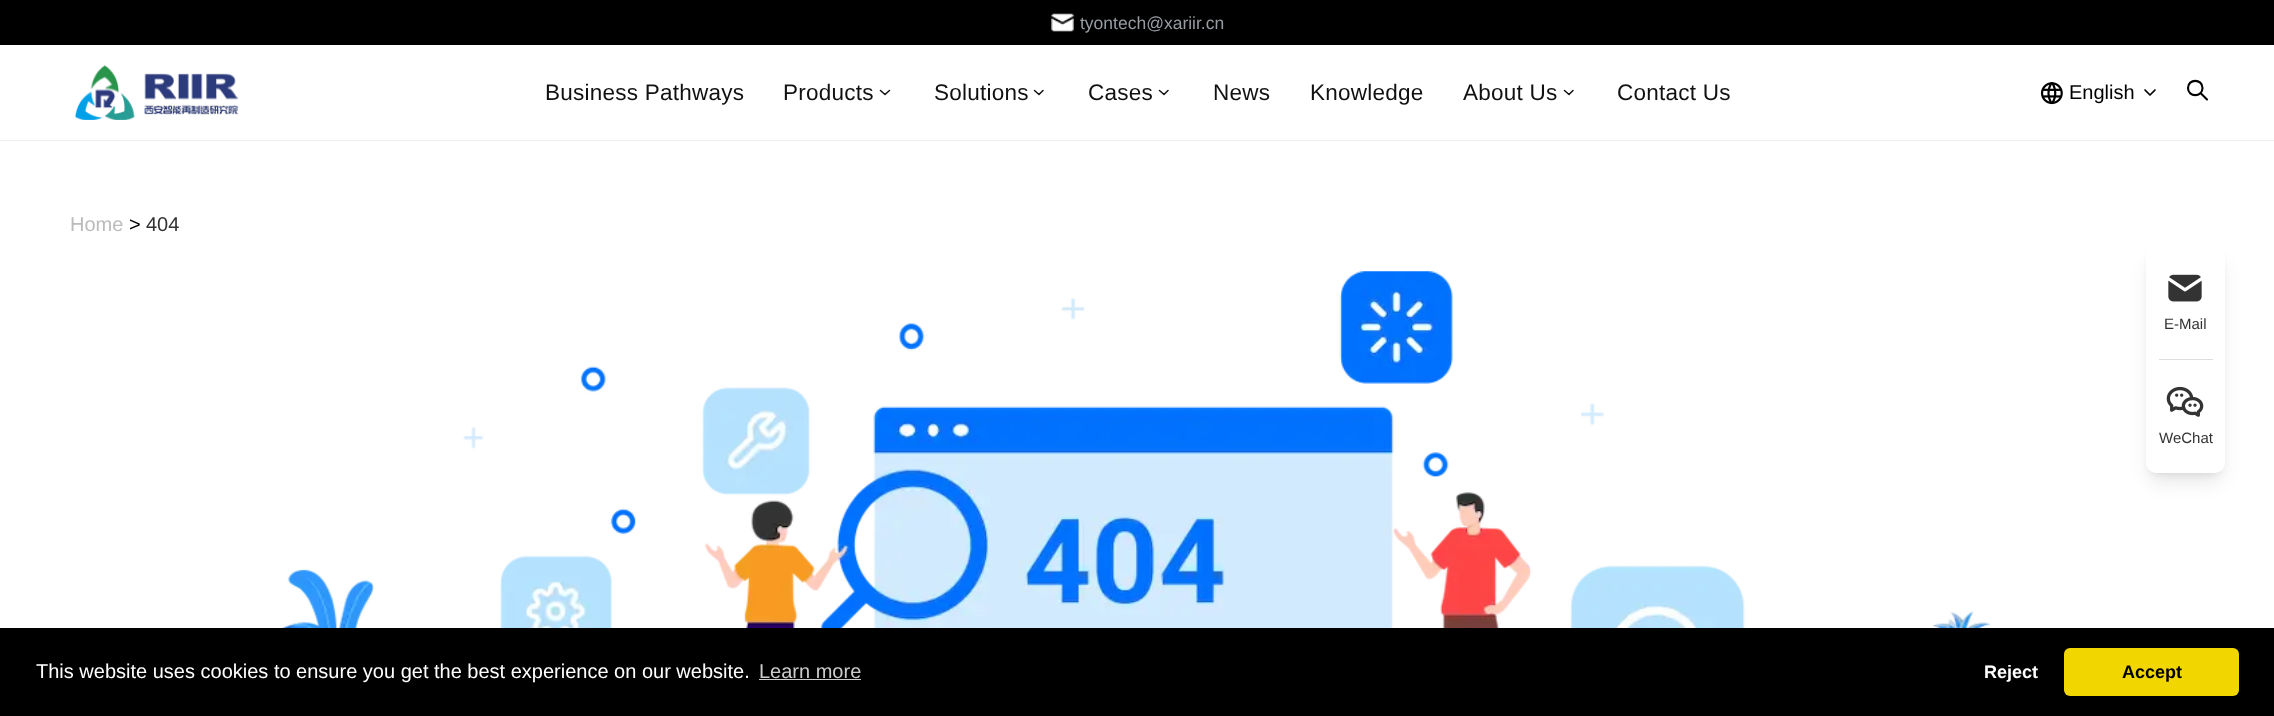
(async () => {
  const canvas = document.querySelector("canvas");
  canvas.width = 2274;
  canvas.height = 716;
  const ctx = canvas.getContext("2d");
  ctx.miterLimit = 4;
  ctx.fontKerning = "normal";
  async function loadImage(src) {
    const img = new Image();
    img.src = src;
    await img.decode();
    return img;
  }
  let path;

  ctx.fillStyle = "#ffffff";
  ctx.fillRect(0, 0, 2274, 716);
  ctx.fillStyle = "#000000";
  ctx.fillRect(0, 0, 2274, 45);
  ctx.drawImage(await loadImage("img/1.png"), 1051, 13, 23, 19);
  ctx.fillStyle = "#eeeeee";
  ctx.fillRect(0, 140, 2274, 1);
  ctx.drawImage(await loadImage("img/2.png"), 75, 65, 163, 55);
  path = new Path2D("M880.5 90.5L885 94.5L889.5 90.5");
  ctx.strokeStyle = "#111111";
  ctx.lineWidth = 1.5;
  ctx.lineCap = "round";
  ctx.lineJoin = "round";
  ctx.stroke(path);
  path = new Path2D("M1034.5 90.5L1039 94.5L1043 90.5");
  ctx.stroke(path);
  path = new Path2D("M1159.5 90.5L1164 94.5L1168 90.5");
  ctx.stroke(path);
  path = new Path2D("M1564.5 90.5L1569 94.5L1573 90.5");
  ctx.stroke(path);
  ctx.drawImage(await loadImage("img/3.png"), 2040, 82, 23, 23);
  path = new Path2D("M2145 90L2150 95L2155 90");
  ctx.strokeStyle = "#000000";
  ctx.lineWidth = 1.7;
  ctx.stroke(path);
  path = new Path2D("M2188 88C2188 97.5 2202.5 97.5 2202.5 88C2202.5 78.5 2188 78.5 2188 88M2207 99.5L2200.5 93");
  ctx.lineWidth = 2.1;
  ctx.stroke(path);
  ctx.drawImage(await loadImage("img/4.png"), 282, 271, 1709, 357);
  ctx.fillStyle = "rgba(0, 0, 0, 0.1)";
  ctx.filter = "blur(4px)";
  ctx.beginPath();
  ctx.roundRect(2151, 256, 69, 217, 5);
  ctx.fill();
  ctx.filter = "none";
  ctx.filter = "blur(9.5px)";
  ctx.beginPath();
  ctx.roundRect(2150, 263, 71, 218, 6);
  ctx.fill();
  ctx.filter = "none";
  ctx.fillStyle = "#ffffff";
  ctx.beginPath();
  ctx.roundRect(2146, 246, 79, 227, 10);
  ctx.fill();
  ctx.drawImage(await loadImage("img/5.png"), 2168, 274, 34, 28);
  ctx.fillStyle = "#dddddd";
  ctx.fillRect(2159, 359, 54, 1);
  ctx.drawImage(await loadImage("img/6.png"), 2166, 386, 38, 31);
  ctx.fillStyle = "#000000";
  ctx.fillRect(0, 628, 2274, 88);
  ctx.fillStyle = "#cccccc";
  ctx.fillRect(759, 679, 102, 1);
  ctx.fillStyle = "#f1d600";
  ctx.beginPath();
  ctx.roundRect(2064, 648, 175, 48, 6);
  ctx.fill();
  ctx.font = "17.5px Liberation Sans";
  ctx.fillStyle = "#979ca2";
  ctx.fillText("tyontech@xariir.cn", 1080, 29);
  ctx.letterSpacing = "0.25px";
  ctx.font = "22.5px Liberation Sans";
  ctx.fillStyle = "#111111";
  for (const [text, x, y] of [
    ["Business Pathways", 545, 100],
    ["Products", 783, 100],
    ["Solutions", 934, 100],
    ["Cases", 1088, 100],
    ["News", 1213, 100],
    ["Knowledge", 1310, 100],
    ["About Us", 1463, 100],
    ["Contact Us", 1617, 100],
  ]) {
    ctx.fillText(text, x, y);
  }
  ctx.letterSpacing = "0px";
  ctx.font = "20px Liberation Sans";
  ctx.fillStyle = "#000000";
  ctx.fillText("English", 2069, 99);
  ctx.fillStyle = "#bbbbbb";
  ctx.fillText("Home", 70, 231);
  ctx.fillStyle = "#000000";
  ctx.fillText(">", 129, 231);
  ctx.fillStyle = "#333333";
  ctx.fillText("404", 146, 231);
  ctx.font = "15px Liberation Sans";
  ctx.fillText("E-Mail", 2164, 329);
  ctx.fillText("WeChat", 2159, 443);
  ctx.font = "20px Liberation Sans";
  ctx.fillStyle = "#ffffff";
  ctx.fillText("This website uses cookies to ensure you get the best experience on our website.", 36, 678);
  ctx.fillStyle = "#cccccc";
  ctx.fillText("Learn more", 759, 678);
  ctx.font = "bold 18px Liberation Sans";
  ctx.fillStyle = "#ffffff";
  ctx.fillText("Reject", 1984, 678);
  ctx.fillStyle = "#000000";
  ctx.fillText("Accept", 2122, 678);
})();
